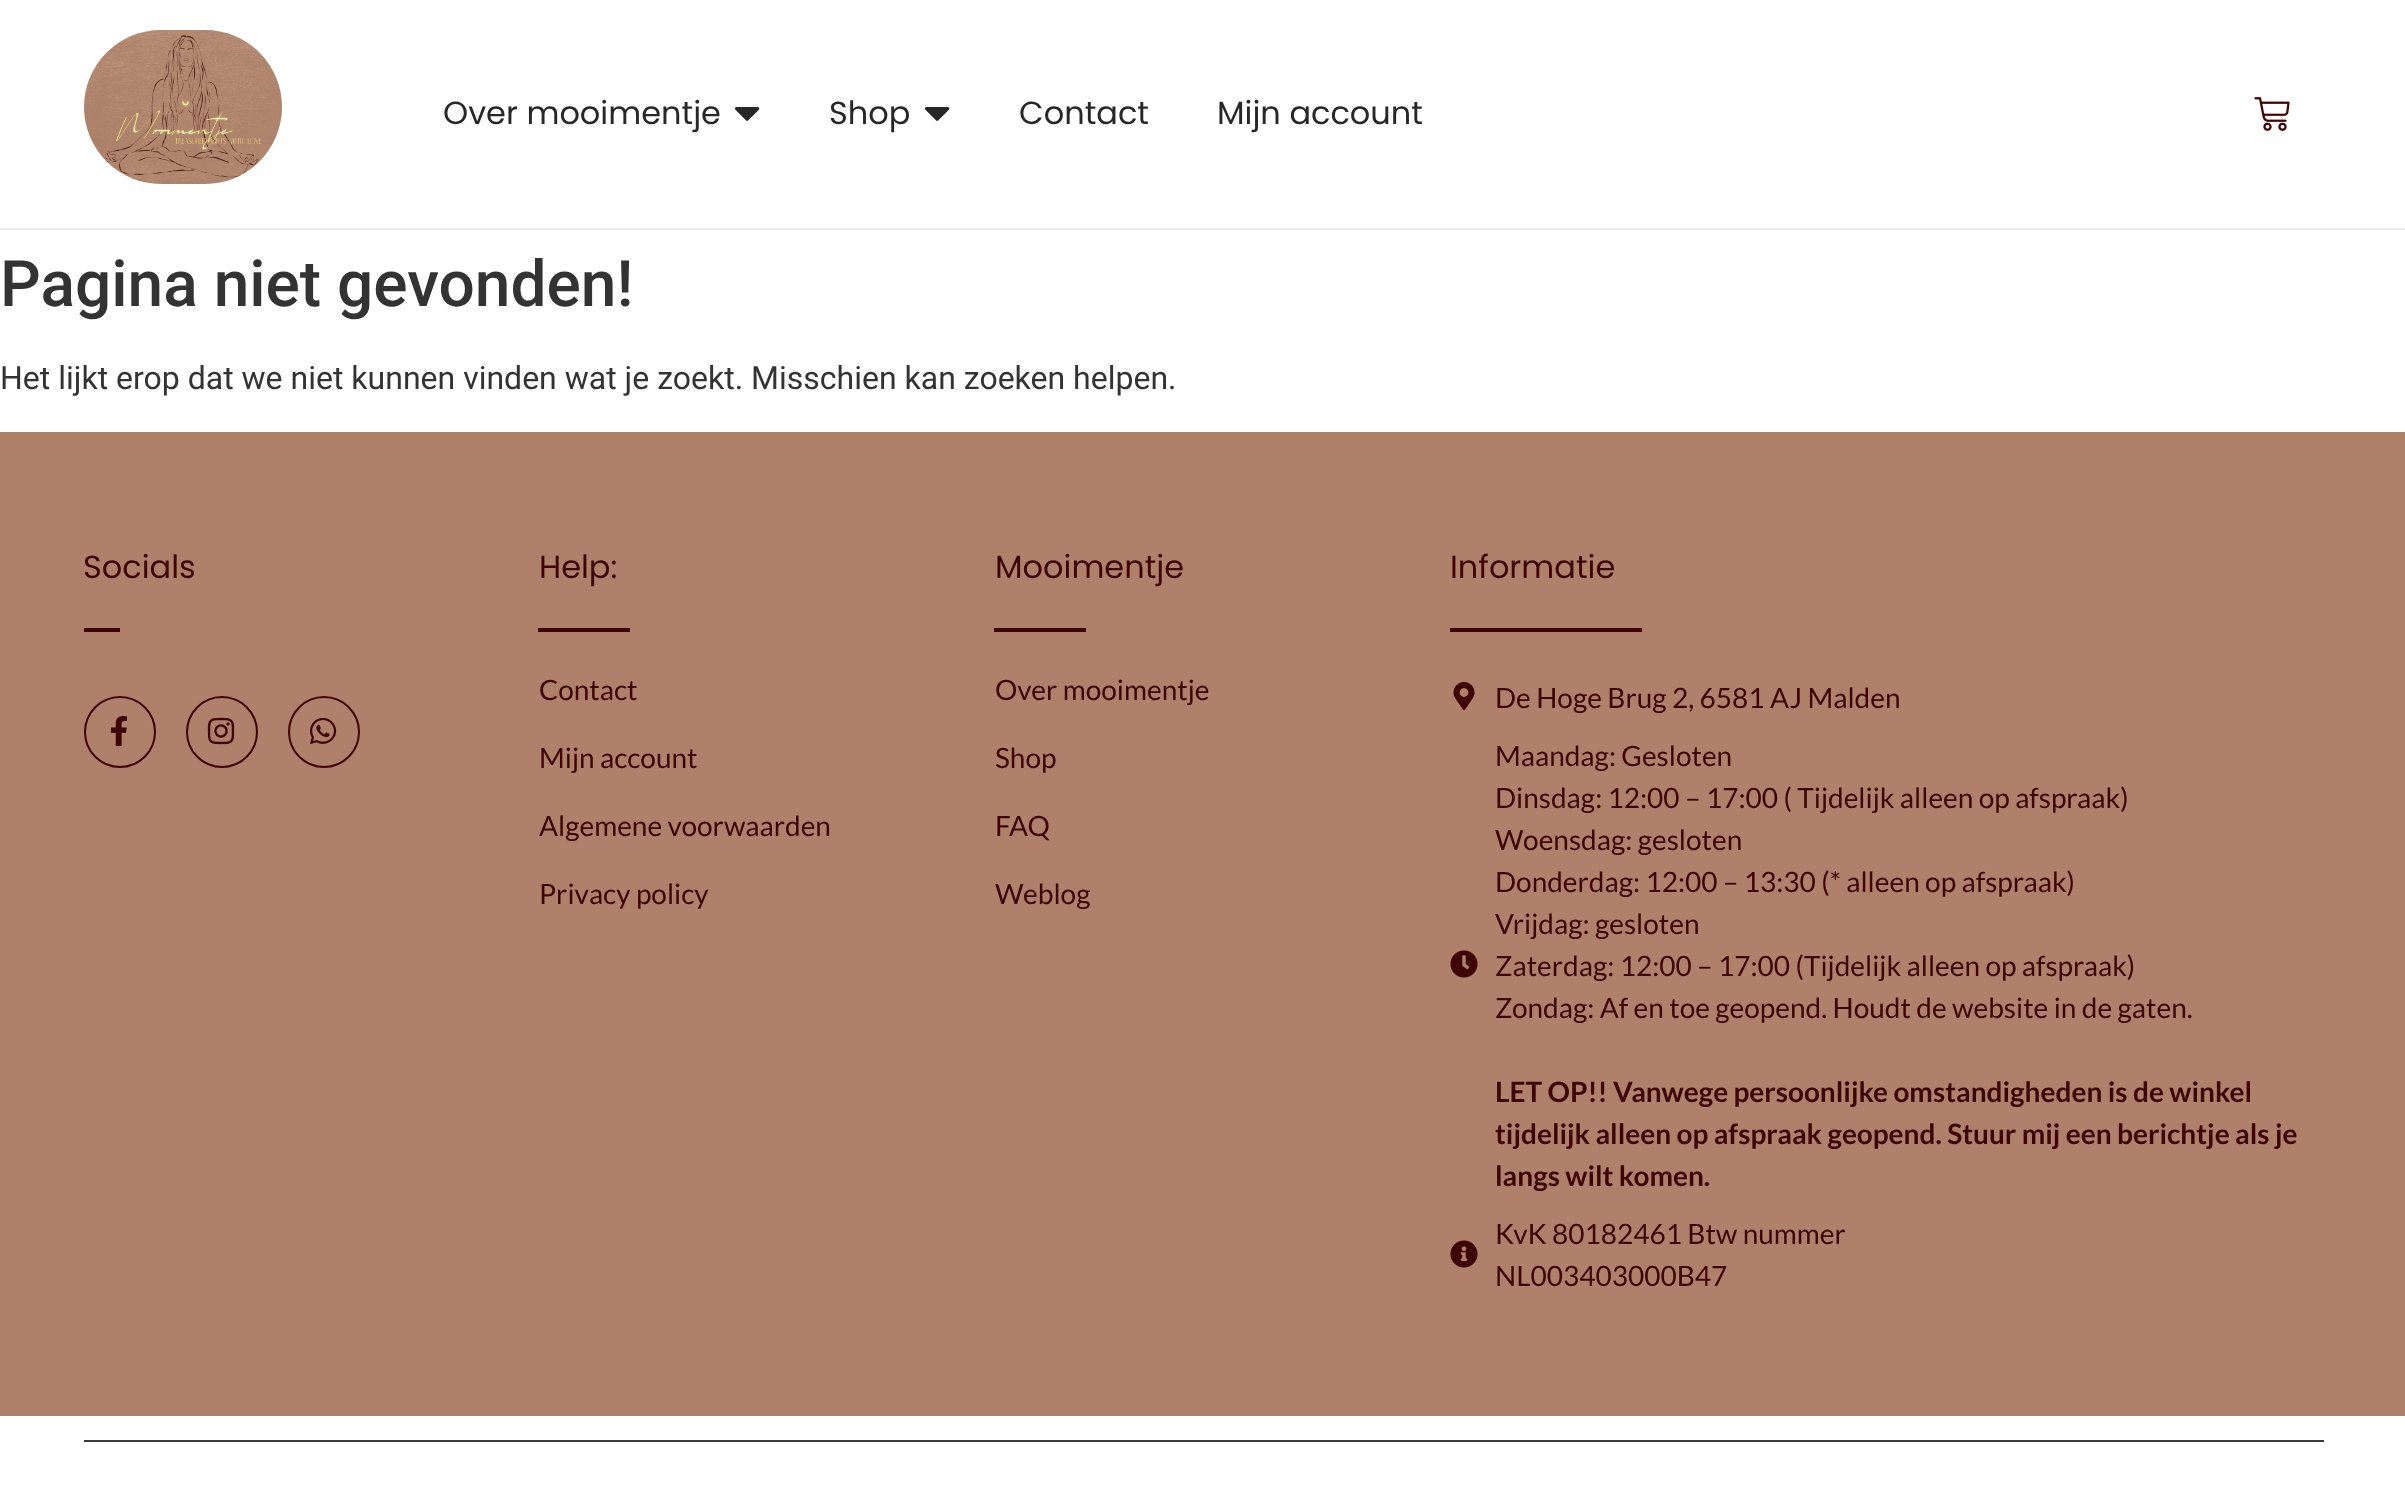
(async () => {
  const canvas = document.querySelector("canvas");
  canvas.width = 2405;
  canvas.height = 1491;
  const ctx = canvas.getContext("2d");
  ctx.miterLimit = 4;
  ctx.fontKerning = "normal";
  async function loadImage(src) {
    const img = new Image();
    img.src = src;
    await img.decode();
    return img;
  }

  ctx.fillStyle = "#ffffff";
  ctx.fillRect(0, 0, 2405, 1491);
  ctx.fillStyle = "#eaeaea";
  ctx.fillRect(0, 228, 2405, 2);
  ctx.drawImage(await loadImage("img/1.png"), 84, 30, 198, 154);
  ctx.drawImage(await loadImage("img/2.png"), 735, 107, 25, 14);
  ctx.drawImage(await loadImage("img/2.png"), 925, 107, 25, 14);
  ctx.drawImage(await loadImage("img/3.png"), 2254, 97, 36, 34);
  ctx.fillStyle = "#af816a";
  ctx.fillRect(0, 432, 2405, 984);
  ctx.fillStyle = "#3e0504";
  ctx.fillRect(84, 628, 36, 4);
  ctx.beginPath();
  ctx.arc(120, 732, 35, 0, Math.PI * 2);
  ctx.strokeStyle = "#3e0504";
  ctx.lineWidth = 2;
  ctx.stroke();
  ctx.drawImage(await loadImage("img/4.png"), 110, 716, 18, 30);
  ctx.beginPath();
  ctx.arc(222, 732, 35, 0, Math.PI * 2);
  ctx.stroke();
  ctx.drawImage(await loadImage("img/5.png"), 207, 717, 28, 28);
  ctx.beginPath();
  ctx.arc(324, 732, 35, 0, Math.PI * 2);
  ctx.stroke();
  ctx.drawImage(await loadImage("img/6.png"), 310, 717, 27, 27);
  for (const [x, y, w, h, color] of [
    [538, 628, 92, 4, "#3e0504"],
    [994, 628, 92, 4, "#3e0504"],
    [1450, 628, 192, 4, "#3e0504"],
  ]) {
    ctx.fillStyle = color;
    ctx.fillRect(x, y, w, h);
  }
  ctx.drawImage(await loadImage("img/7.png"), 1453, 682, 22, 28);
  ctx.drawImage(await loadImage("img/8.png"), 1450, 950, 28, 28);
  ctx.drawImage(await loadImage("img/9.png"), 1450, 1240, 28, 28);
  ctx.fillStyle = "#3a3a3a";
  ctx.fillRect(84, 1440, 2240, 2);
  ctx.font = "32px Poppins";
  ctx.fillStyle = "#272727";
  for (const [text, x, y] of [
    ["Over mooimentje", 443, 124],
    ["Shop", 829, 124],
    ["Contact", 1019, 124],
    ["Mijn account", 1217, 124],
  ]) {
    ctx.fillText(text, x, y);
  }
  ctx.font = "500 64px Roboto";
  ctx.fillStyle = "#333333";
  ctx.fillText("Pagina niet gevonden!", 0, 306);
  ctx.font = "32px Roboto";
  ctx.fillText("Het lijkt erop dat we niet kunnen vinden wat je zoekt. Misschien kan zoeken helpen.", 0, 389);
  ctx.font = "32px Poppins";
  ctx.fillStyle = "#3e0504";
  ctx.fillText("Socials", 83, 578);
  ctx.fillText("Help:", 539, 578);
  ctx.font = "28px Lato";
  for (const [text, x, y] of [
    ["Contact", 539, 700],
    ["Mijn account", 539, 768],
    ["Algemene voorwaarden", 539, 836],
    ["Privacy policy", 539, 904],
  ]) {
    ctx.fillText(text, x, y);
  }
  ctx.font = "32px Poppins";
  ctx.fillText("Mooimentje", 995, 578);
  ctx.font = "28px Lato";
  for (const [text, x, y] of [
    ["Over mooimentje", 995, 700],
    ["Shop", 995, 768],
    ["FAQ", 995, 836],
    ["Weblog", 995, 904],
  ]) {
    ctx.fillText(text, x, y);
  }
  ctx.font = "32px Poppins";
  ctx.fillText("Informatie", 1450, 578);
  ctx.font = "28px Lato";
  for (const [text, x, y] of [
    ["De Hoge Brug 2, 6581 AJ Malden", 1495, 708],
    ["Maandag: Gesloten", 1495, 766],
    ["Dinsdag: 12:00 – 17:00 ( Tijdelijk alleen op afspraak)", 1495, 808],
    ["Woensdag: gesloten", 1495, 850],
    ["Donderdag: 12:00 – 13:30 (* alleen op afspraak)", 1495, 892],
    ["Vrijdag: gesloten", 1495, 934],
    ["Zaterdag: 12:00 – 17:00 (Tijdelijk alleen op afspraak)", 1495, 976],
    ["Zondag: Af en toe geopend. Houdt de website in de gaten.", 1495, 1018],
  ]) {
    ctx.fillText(text, x, y);
  }
  ctx.font = "bold 28px Lato";
  for (const [text, x, y] of [
    ["LET OP!! Vanwege persoonlijke omstandigheden is de winkel", 1495, 1102],
    ["tijdelijk alleen op afspraak geopend. Stuur mij een berichtje als je", 1495, 1144],
    ["langs wilt komen.", 1495, 1186],
  ]) {
    ctx.fillText(text, x, y);
  }
  ctx.font = "28px Lato";
  ctx.fillText("KvK 80182461 Btw nummer", 1495, 1244);
  ctx.fillText("NL003403000B47", 1495, 1286);
})();
